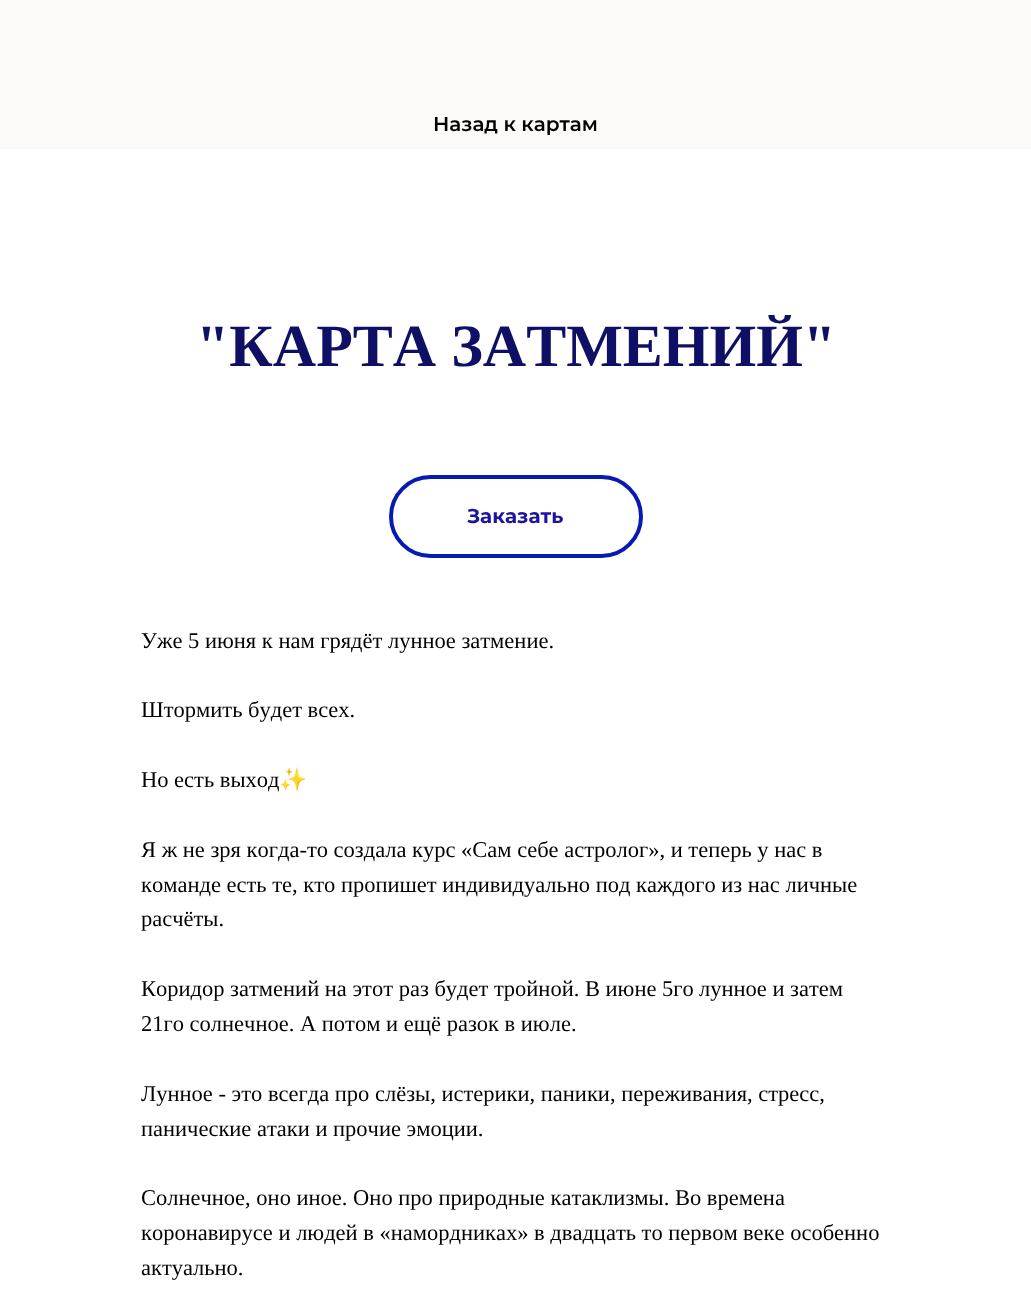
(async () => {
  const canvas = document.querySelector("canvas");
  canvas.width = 1031;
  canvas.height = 1289;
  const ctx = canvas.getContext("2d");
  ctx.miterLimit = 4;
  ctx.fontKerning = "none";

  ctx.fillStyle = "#ffffff";
  ctx.fillRect(0, 0, 1031, 1289);
  ctx.fillStyle = "#fcf9f9";
  ctx.fillRect(0, 0, 1031, 149);
  ctx.beginPath();
  ctx.roundRect(391, 477, 250, 79, 39.5);
  ctx.strokeStyle = "#071bb0";
  ctx.lineWidth = 4;
  ctx.stroke();
  ctx.font = "600 20px Montserrat";
  ctx.fillStyle = "#000000";
  ctx.fillText("Назад к картам", 433, 131);
  ctx.font = "bold 60px Liberation Serif";
  ctx.fillStyle = "#0f0f65";
  ctx.fillText("\"КАРТА ЗАТМЕНИЙ\"", 196, 366);
  ctx.font = "bold 20px Montserrat";
  ctx.fillStyle = "#1b149e";
  ctx.fillText("Заказать", 467, 523);
  ctx.font = "22.5px Liberation Serif";
  ctx.fillStyle = "#000000";
  for (const [text, x, y] of [
    ["Уже 5 июня к нам грядёт лунное затмение.", 141, 648],
    ["Штормить будет всех.", 141, 717],
    ["Но есть выход", 141, 787],
  ]) {
    ctx.fillText(text, x, y);
  }
  ctx.font = "22.5px Noto Color Emoji";
  ctx.fillText("✨", 279, 787);
  ctx.font = "22.5px Liberation Serif";
  for (const [text, x, y] of [
    ["Я ж не зря когда-то создала курс «Сам себе астролог», и теперь у нас в", 141, 857],
    ["команде есть те, кто пропишет индивидуально под каждого из нас личные", 141, 892],
    ["расчёты.", 141, 926],
    ["Коридор затмений на этот раз будет тройной. В июне 5го", 141, 996],
    ["лунное и затем", 699, 996],
    ["21го солнечное. А потом и ещё разок в июле.", 141, 1031],
    ["Лунное - это всегда про слёзы, истерики, паники, переживания, стресс,", 141, 1101],
    ["панические атаки и прочие эмоции.", 141, 1136],
    ["Солнечное, оно иное. Оно про природные катаклизмы. Во времена", 141, 1205],
    ["коронавирусе и людей в «намордниках» в двадцать то первом", 141, 1240],
    ["веке особенно", 743, 1240],
    ["актуально.", 141, 1275],
  ]) {
    ctx.fillText(text, x, y);
  }
})();
